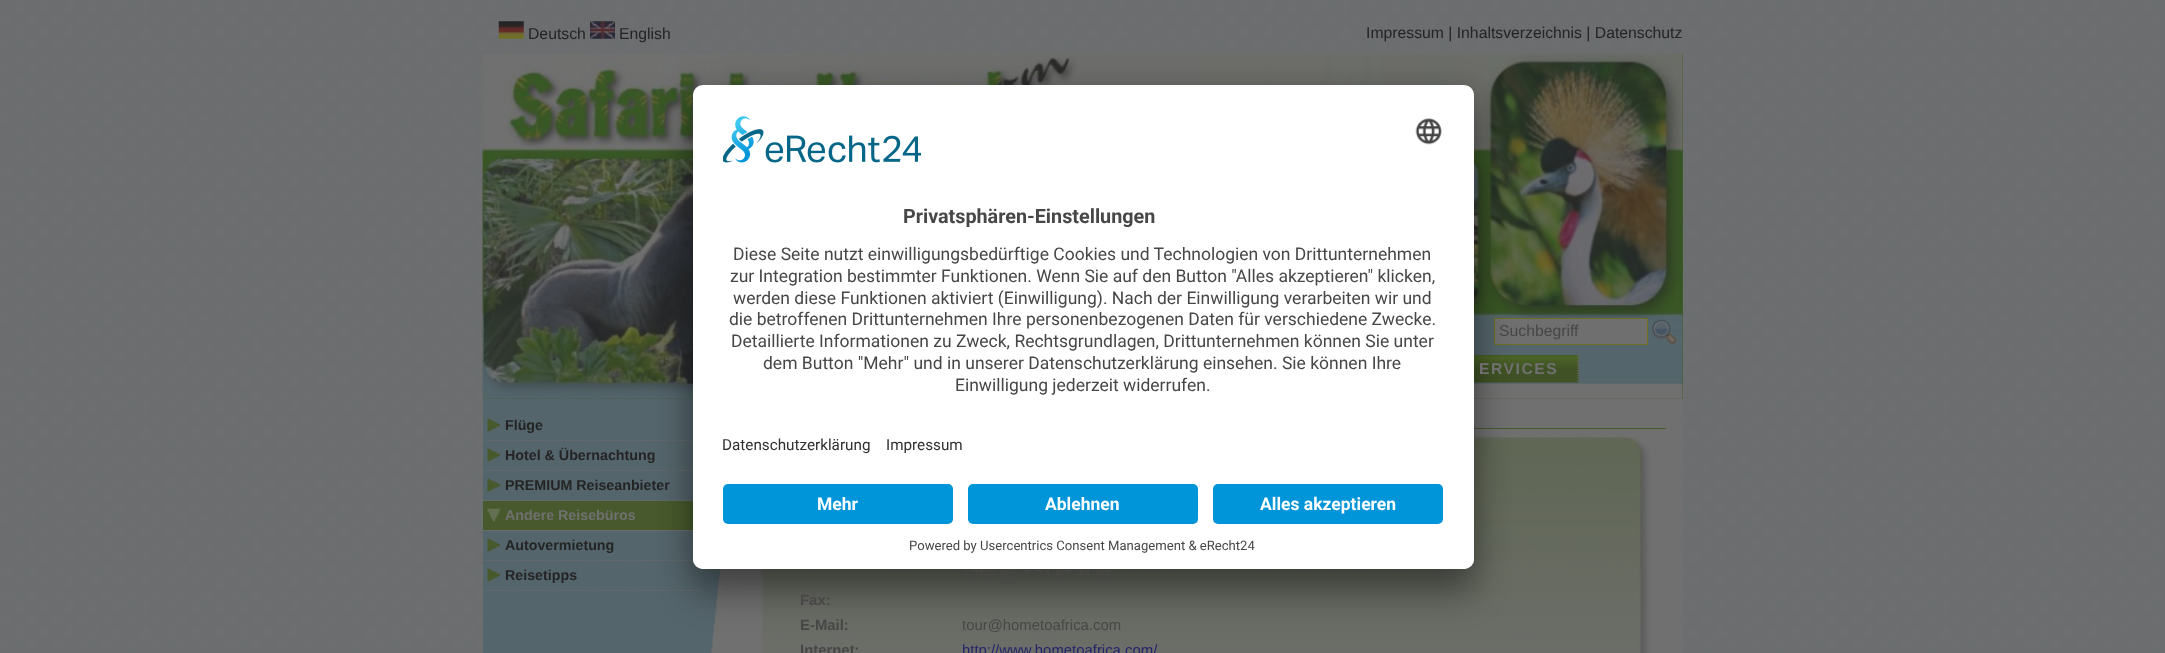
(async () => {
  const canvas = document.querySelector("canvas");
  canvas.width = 2165;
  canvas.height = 653;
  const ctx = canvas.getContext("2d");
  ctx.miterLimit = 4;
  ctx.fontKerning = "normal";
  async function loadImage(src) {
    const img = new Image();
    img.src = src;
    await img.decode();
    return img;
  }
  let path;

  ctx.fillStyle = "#ffffff";
  ctx.fillRect(0, 0, 2165, 653);
  ctx.drawImage(await loadImage("img/1.png"), 0, 0, 2165, 653);
  ctx.fillStyle = "#485a2c";
  ctx.fillRect(483, 54, 1200, 345);
  ctx.drawImage(await loadImage("img/2.png"), 482, 53, 1201, 346);
  ctx.drawImage(await loadImage("img/3.png"), 498, 21, 26, 18);
  ctx.drawImage(await loadImage("img/4.png"), 590, 21, 25, 18);
  ctx.fillStyle = "#6f6f6f";
  ctx.beginPath();
  ctx.rect(1494.5, 318.5, 153, 26);
  ctx.fill();
  ctx.strokeStyle = "#707024";
  ctx.stroke();
  ctx.drawImage(await loadImage("img/5.png"), 1652, 319, 25, 25);
  ctx.drawImage(await loadImage("img/6.png"), 1474, 355, 105, 28);
  path = new Path2D("M1578 355V382.5");
  ctx.strokeStyle = "#707070";
  ctx.lineWidth = 1.2;
  ctx.setLineDash([1.25, 1.25]);
  ctx.stroke(path);
  ctx.fillStyle = "#54656b";
  ctx.fillRect(483, 399, 216, 254);
  ctx.drawImage(await loadImage("img/7.png"), 487, 418, 13, 14);
  path = new Path2D("M482.5 440.5H729");
  ctx.strokeStyle = "#6b6b6b";
  ctx.stroke(path);
  ctx.drawImage(await loadImage("img/7.png"), 487, 448, 13, 14);
  path = new Path2D("M482.5 470.5H729");
  ctx.stroke(path);
  ctx.drawImage(await loadImage("img/7.png"), 487, 478, 13, 14);
  path = new Path2D("M482.5 500.5H729");
  ctx.stroke(path);
  ctx.fillStyle = "#485a2d";
  ctx.fillRect(483, 501, 210, 29);
  ctx.drawImage(await loadImage("img/8.png"), 487, 508, 13, 14);
  ctx.fillStyle = "#6b6b6b";
  ctx.fillRect(483, 530, 210, 1);
  ctx.drawImage(await loadImage("img/7.png"), 487, 538, 13, 14);
  path = new Path2D("M482.5 560.5H729");
  ctx.stroke(path);
  ctx.drawImage(await loadImage("img/7.png"), 487, 568, 13, 14);
  ctx.fillStyle = "#707070";
  ctx.fillRect(711, 399, 972, 254);
  ctx.drawImage(await loadImage("img/9.png"), 699, 568, 22, 85);
  ctx.save();
  ctx.beginPath();
  ctx.rect(483, 411, 223, 180);
  ctx.clip();
  path = new Path2D("M482.5 590.5H729");
  ctx.stroke(path);
  ctx.restore();
  ctx.fillStyle = "#485a2c";
  ctx.fillRect(1474, 428, 192, 1);
  ctx.drawImage(await loadImage("img/10.png"), 757, 431, 897, 222);
  ctx.fillStyle = "rgba(0, 0, 0, 0.3)";
  ctx.filter = "blur(17.5px)";
  ctx.beginPath();
  ctx.roundRect(693, 110, 781, 484, 10);
  ctx.fill();
  ctx.filter = "none";
  ctx.fillStyle = "rgba(0, 0, 0, 0.22)";
  ctx.filter = "blur(16px)";
  ctx.beginPath();
  ctx.roundRect(693, 91, 781, 484, 10);
  ctx.fill();
  ctx.filter = "none";
  ctx.fillStyle = "#ffffff";
  ctx.beginPath();
  ctx.roundRect(693, 85, 781, 484, 10);
  ctx.fill();
  ctx.save();
  ctx.beginPath();
  ctx.roundRect(693, 85, 781, 484, 10);
  ctx.clip();
  ctx.beginPath();
  ctx.roundRect(693, 85, 781, 389, [10, 10, 0, 0]);
  ctx.clip();
  ctx.fillRect(693, 86, 781, 388);
  ctx.restore();
  ctx.drawImage(await loadImage("img/11.png"), 723, 116, 198, 47);
  ctx.drawImage(await loadImage("img/12.png"), 1415, 118, 27, 27);
  ctx.beginPath();
  ctx.roundRect(693, 474, 781, 95, [0, 0, 10, 10]);
  ctx.fill();
  ctx.fillStyle = "#0094d8";
  ctx.beginPath();
  ctx.roundRect(723, 484, 230, 40, 5);
  ctx.fill();
  ctx.beginPath();
  ctx.roundRect(968, 484, 230, 40, 5);
  ctx.fill();
  ctx.beginPath();
  ctx.roundRect(1213, 484, 230, 40, 5);
  ctx.fill();
  ctx.font = "15.75px Liberation Sans";
  ctx.fillStyle = "#242424";
  for (const [text, x, y] of [
    ["Deutsch", 528, 39],
    ["English", 619, 39],
    ["Impressum | Inhaltsverzeichnis | Datenschutz", 1366, 38],
  ]) {
    ctx.fillText(text, x, y);
  }
  ctx.fillStyle = "#474747";
  ctx.fillText("Suchbegriff", 1499, 336);
  ctx.fillText(".", 1665, 336);
  ctx.letterSpacing = "1.5px";
  ctx.font = "bold 15.75px Liberation Sans";
  ctx.fillStyle = "#707070";
  ctx.fillText("ERVICES", 1479, 374);
  ctx.letterSpacing = "0px";
  ctx.font = "bold 14.25px Liberation Sans";
  ctx.fillStyle = "#242424";
  for (const [text, x, y] of [
    ["Flüge", 505, 430],
    ["Hotel & Übernachtung", 505, 460],
    ["PREMIUM Reiseanbieter", 505, 490],
  ]) {
    ctx.fillText(text, x, y);
  }
  ctx.fillStyle = "#707070";
  ctx.fillText("Andere Reisebüros", 505, 520);
  ctx.fillStyle = "#242424";
  ctx.fillText("Autovermietung", 505, 550);
  ctx.fillText("Reisetipps", 505, 580);
  ctx.font = "14.9px Liberation Sans";
  ctx.fillStyle = "#474747";
  ctx.fillText("+256 (0) 7 74 87 21 85", 962, 580);
  ctx.font = "bold 14.9px Liberation Sans";
  ctx.fillText("Fax:", 800, 605);
  ctx.fillText("E-Mail:", 800, 630);
  ctx.font = "14.9px Liberation Sans";
  ctx.fillText("tour@hometoafrica.com", 962, 630);
  ctx.font = "bold 14.9px Liberation Sans";
  ctx.fillText("Internet:", 800, 655);
  ctx.font = "14.9px Liberation Sans";
  ctx.fillStyle = "#24246b";
  ctx.fillText("http://www.hometoafrica.com/", 962, 655);
  ctx.font = "bold 19.75px Roboto";
  ctx.fillStyle = "#474747";
  ctx.fillText("Privatsphären-Einstellungen", 903, 223);
  ctx.font = "17.5px Roboto";
  for (const [text, x, y] of [
    ["Diese Seite nutzt einwilligungsbedürftige Cookies und Technologien von Drittunternehmen", 733, 260],
    ["zur Integration bestimmter Funktionen. Wenn Sie auf den Button \"Alles akzeptieren\" klicken,", 730, 282],
    ["werden diese Funktionen aktiviert (Einwilligung). Nach der Einwilligung verarbeiten wir und", 733, 304],
    ["die betroffenen Drittunternehmen Ihre personenbezogenen Daten für verschiedene Zwecke.", 729, 325],
    ["Detaillierte Informationen zu Zweck, Rechtsgrundlagen, Drittunternehmen können Sie unter", 731, 347],
    ["dem Button \"Mehr\" und in unserer Datenschutzerklärung einsehen. Sie können Ihre", 763, 369],
    ["Einwilligung jederzeit widerrufen.", 955, 391],
  ]) {
    ctx.fillText(text, x, y);
  }
  ctx.font = "15.25px Roboto";
  ctx.fillStyle = "#303030";
  ctx.fillText("Datenschutzerklärung", 722, 450);
  ctx.fillText("Impressum", 886, 450);
  ctx.font = "bold 17.5px Roboto";
  ctx.fillStyle = "#ffffff";
  for (const [text, x, y] of [
    ["Mehr", 817, 510],
    ["Ablehnen", 1045, 510],
    ["Alles akzeptieren", 1260, 510],
  ]) {
    ctx.fillText(text, x, y);
  }
  ctx.font = "13.1px Roboto";
  ctx.fillStyle = "#474747";
  ctx.fillText("Powered by Usercentrics Consent Management & eRecht24", 909, 550);
})();
